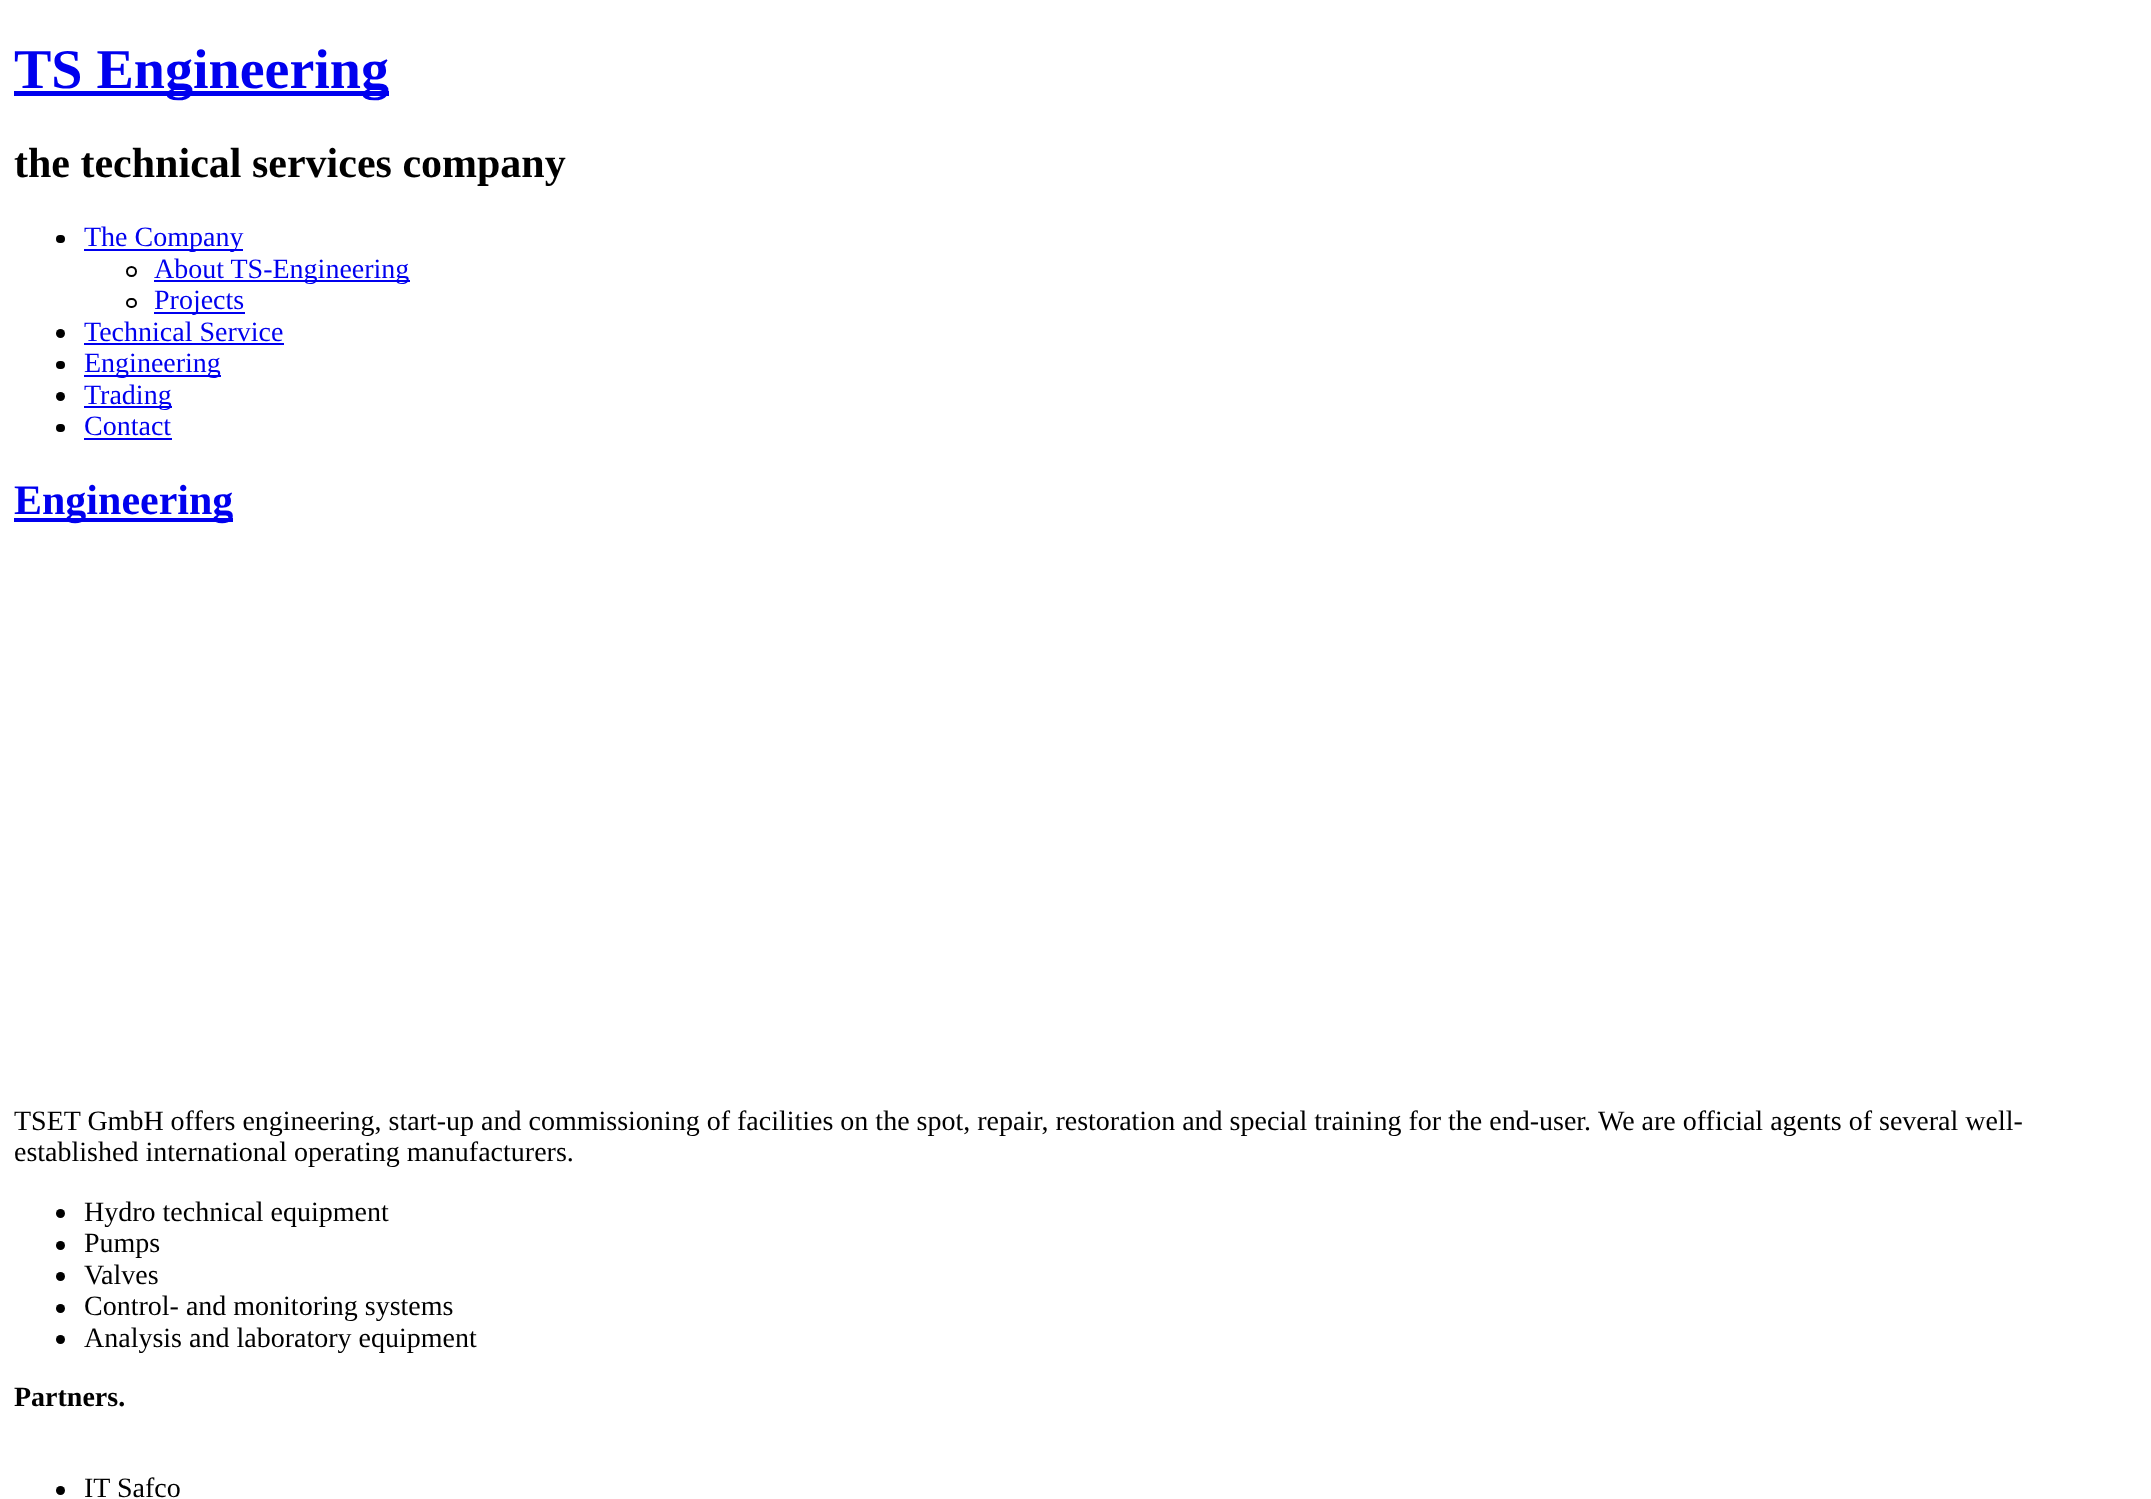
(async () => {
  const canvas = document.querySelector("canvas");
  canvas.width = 2151;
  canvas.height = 1499;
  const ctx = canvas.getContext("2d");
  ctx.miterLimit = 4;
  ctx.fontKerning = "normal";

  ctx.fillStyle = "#ffffff";
  ctx.fillRect(0, 0, 2151, 1499);
  ctx.fillStyle = "#0000ee";
  ctx.fillRect(14, 91, 375, 5);
  ctx.fillStyle = "#000000";
  ctx.beginPath();
  ctx.roundRect(56, 235, 9, 8, 4);
  ctx.fill();
  ctx.fillStyle = "#0000ee";
  ctx.fillRect(84, 249, 159, 2);
  ctx.beginPath();
  ctx.arc(131.5, 271.5, 4.5, 0, Math.PI * 2);
  ctx.strokeStyle = "#000000";
  ctx.lineWidth = 2;
  ctx.stroke();
  ctx.fillRect(154, 280, 256, 2);
  ctx.beginPath();
  ctx.roundRect(127, 299, 9, 8, 4);
  ctx.stroke();
  ctx.fillRect(154, 312, 91, 2);
  ctx.fillStyle = "#000000";
  ctx.beginPath();
  ctx.arc(60.5, 333.5, 4.5, 0, Math.PI * 2);
  ctx.fill();
  ctx.fillStyle = "#0000ee";
  ctx.fillRect(84, 343, 200, 2);
  ctx.fillStyle = "#000000";
  ctx.beginPath();
  ctx.roundRect(56, 361, 9, 8, 4);
  ctx.fill();
  ctx.fillStyle = "#0000ee";
  ctx.fillRect(84, 375, 137, 2);
  ctx.fillStyle = "#000000";
  ctx.beginPath();
  ctx.arc(60.5, 396.5, 4.5, 0, Math.PI * 2);
  ctx.fill();
  ctx.fillStyle = "#0000ee";
  ctx.fillRect(84, 406, 88, 2);
  ctx.fillStyle = "#000000";
  ctx.beginPath();
  ctx.roundRect(56, 424, 9, 8, 4);
  ctx.fill();
  ctx.fillStyle = "#0000ee";
  ctx.fillRect(84, 438, 88, 2);
  ctx.fillRect(14, 518, 219, 4);
  ctx.fillStyle = "#000000";
  ctx.beginPath();
  ctx.arc(60.5, 1213.5, 4.5, 0, Math.PI * 2);
  ctx.fill();
  ctx.beginPath();
  ctx.arc(60.5, 1245.5, 4.5, 0, Math.PI * 2);
  ctx.fill();
  ctx.beginPath();
  ctx.arc(60.5, 1276.5, 4.5, 0, Math.PI * 2);
  ctx.fill();
  ctx.beginPath();
  ctx.arc(60.5, 1308.5, 4.5, 0, Math.PI * 2);
  ctx.fill();
  ctx.beginPath();
  ctx.arc(60.5, 1339.5, 4.5, 0, Math.PI * 2);
  ctx.fill();
  ctx.beginPath();
  ctx.arc(60.5, 1490.5, 4.5, 0, Math.PI * 2);
  ctx.fill();
  ctx.font = "bold 56px Liberation Serif";
  ctx.fillStyle = "#0000ee";
  ctx.fillText("TS Engineering", 14, 88);
  ctx.font = "bold 42px Liberation Serif";
  ctx.fillStyle = "#000000";
  ctx.fillText("the technical services company", 14, 177);
  ctx.font = "28px Liberation Serif";
  ctx.fillStyle = "#0000ee";
  for (const [text, x, y] of [
    ["The Company", 84, 246],
    ["About TS-Engineering", 154, 278],
    ["Projects", 154, 309],
    ["Technical Service", 84, 341],
    ["Engineering", 84, 372],
    ["Trading", 84, 404],
    ["Contact", 84, 435],
  ]) {
    ctx.fillText(text, x, y);
  }
  ctx.font = "bold 42px Liberation Serif";
  ctx.fillText("Engineering", 14, 514);
  ctx.font = "28px Liberation Serif";
  ctx.fillStyle = "#000000";
  for (const [text, x, y] of [
    ["TSET GmbH offers engineering, start-up and commissioning of facilities on the spot, repair, restoration and special training for the end-user.", 14, 1130],
    ["We are official agents of several well-", 1598, 1130],
    ["established international operating manufacturers.", 14, 1161],
    ["Hydro technical equipment", 84, 1221],
    ["Pumps", 84, 1252],
    ["Valves", 84, 1284],
    ["Control- and monitoring systems", 84, 1315],
    ["Analysis and laboratory equipment", 84, 1347],
  ]) {
    ctx.fillText(text, x, y);
  }
  ctx.font = "bold 28px Liberation Serif";
  ctx.fillText("Partners.", 14, 1406);
  ctx.font = "28px Liberation Serif";
  ctx.fillText("IT Safco", 84, 1497);
})();
